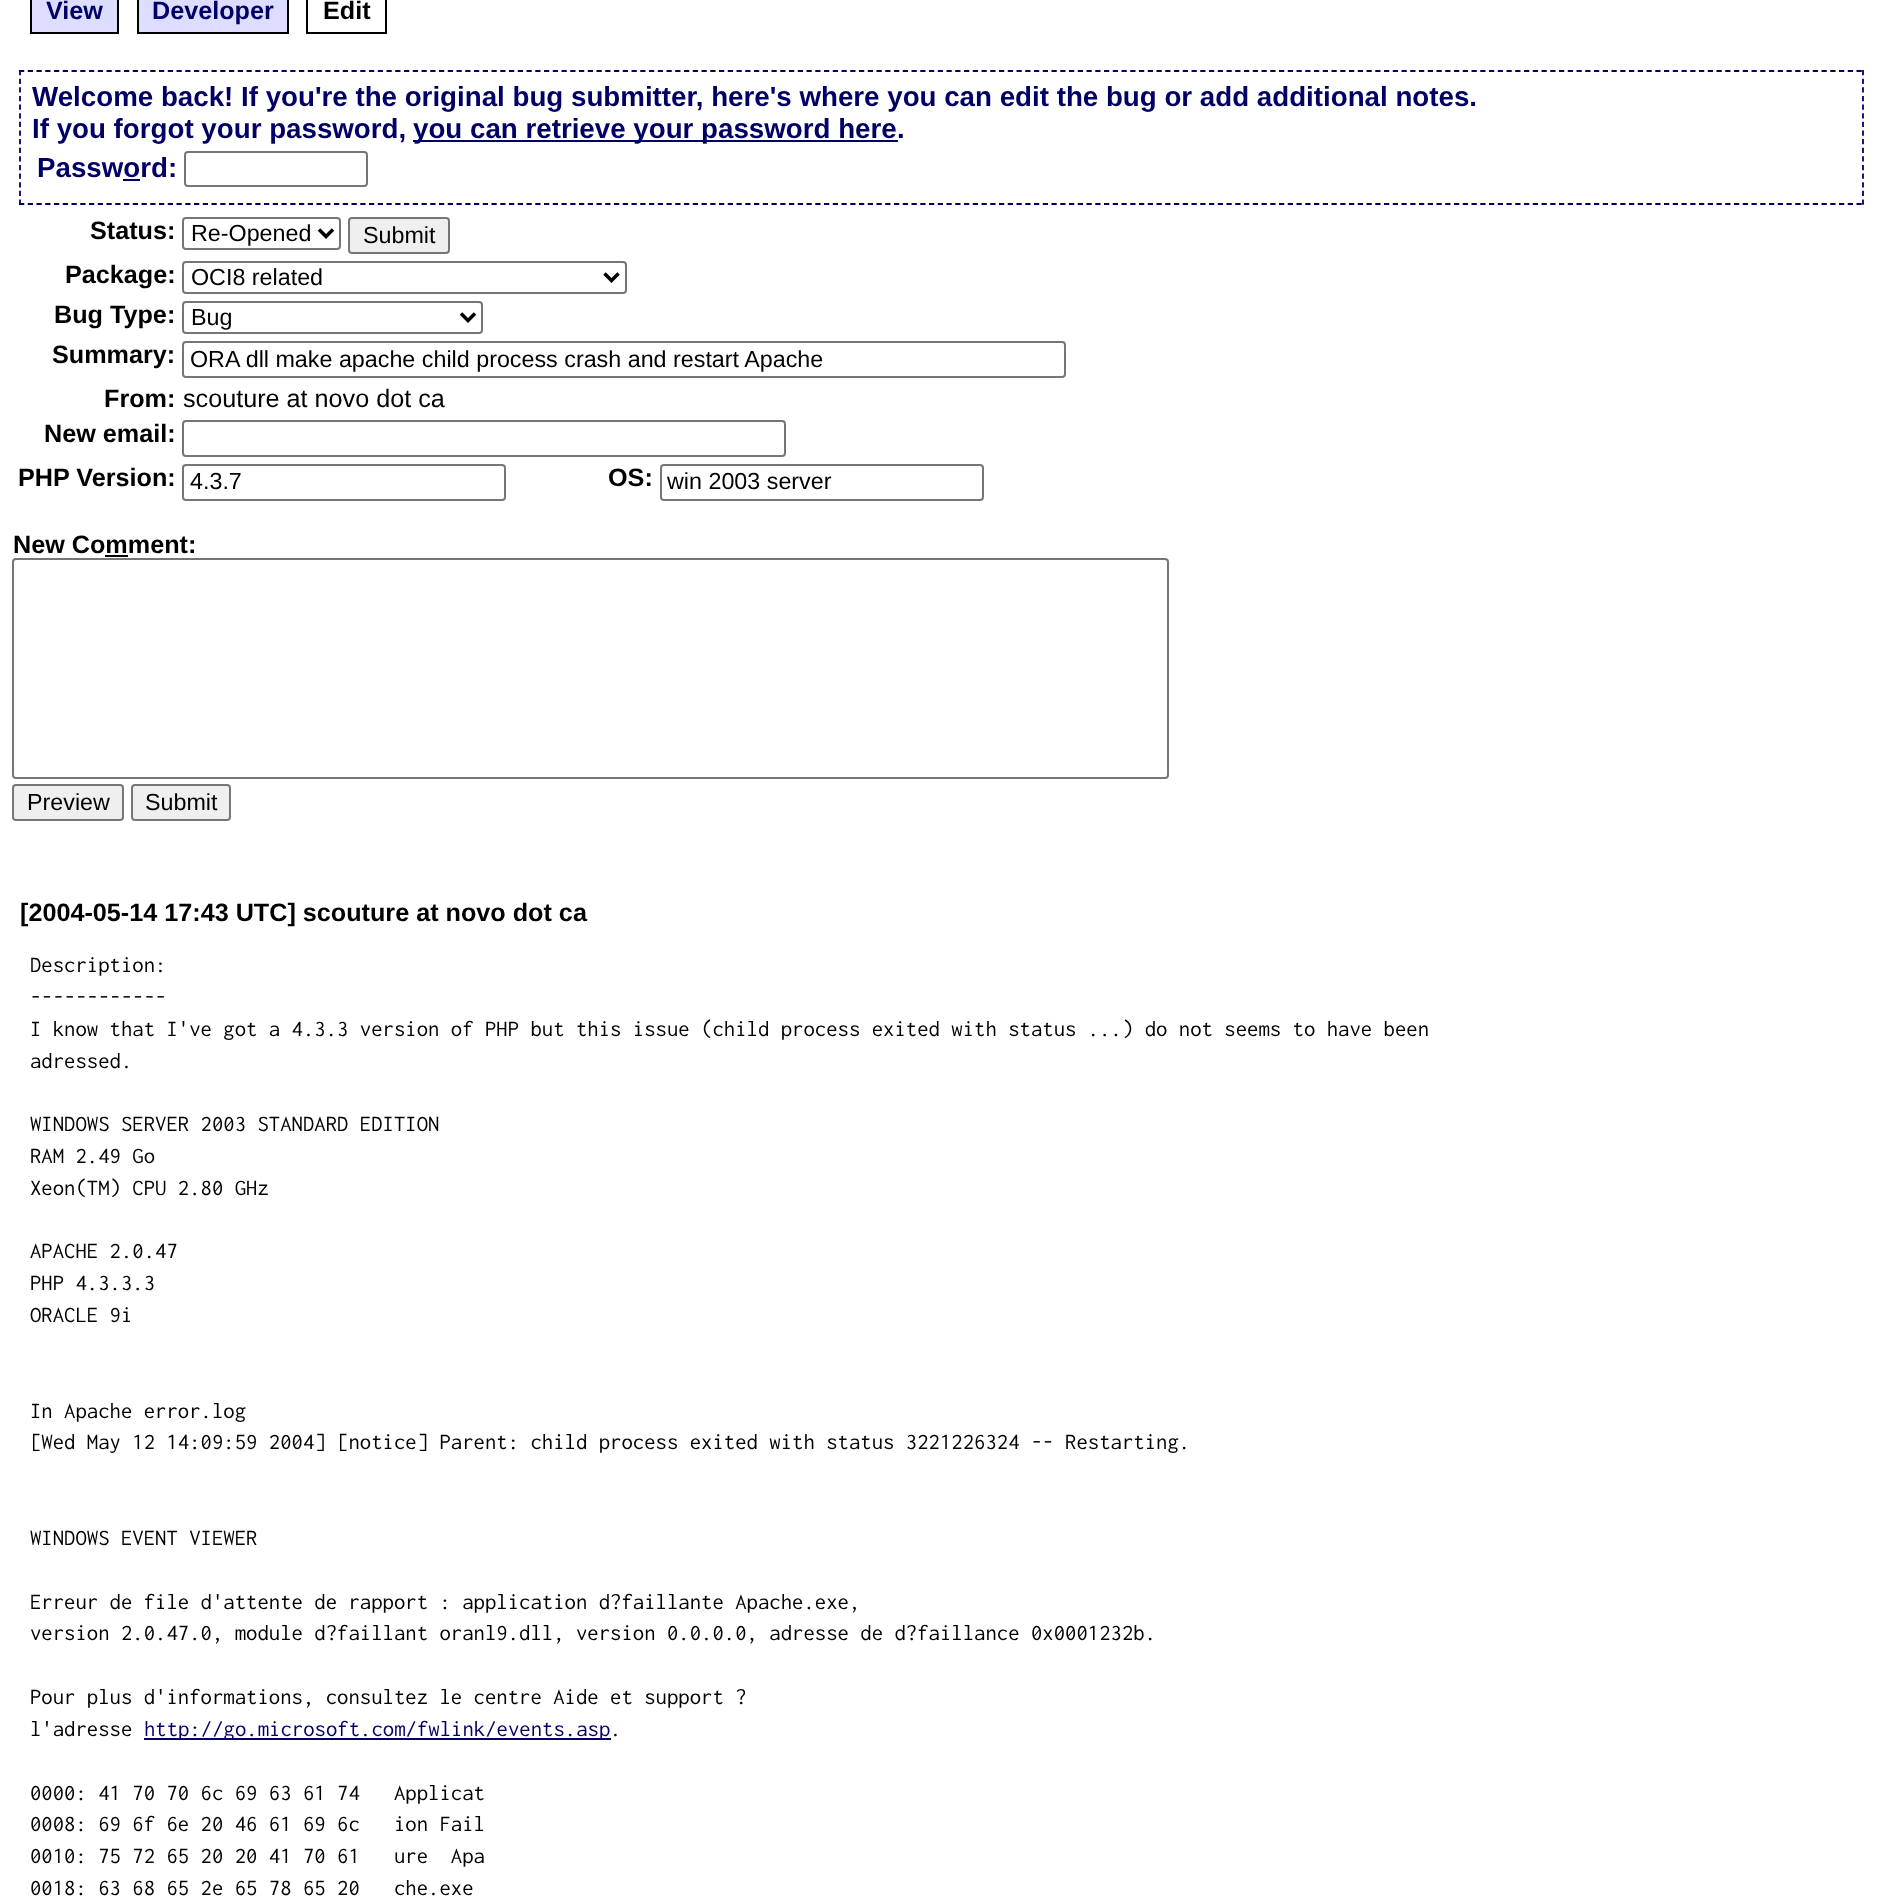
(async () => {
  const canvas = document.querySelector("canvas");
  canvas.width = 1882;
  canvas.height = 1898;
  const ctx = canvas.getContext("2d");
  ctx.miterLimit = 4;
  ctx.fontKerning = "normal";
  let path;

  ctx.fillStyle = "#ffffff";
  ctx.fillRect(0, 0, 1882, 1898);
  for (const [x, y, w, h, color] of [
    [32, 0, 85, 32, "#ddddff"],
    [117, 0, 2, 33, "#000000"],
    [30, 32, 89, 2, "#000000"],
    [30, 0, 2, 33, "#000000"],
    [139, 0, 148, 32, "#ddddff"],
    [287, 0, 2, 33, "#000000"],
    [137, 32, 152, 2, "#000000"],
    [137, 0, 2, 33, "#000000"],
    [385, 0, 2, 33, "#000000"],
    [306, 32, 81, 2, "#000000"],
    [306, 0, 2, 33, "#000000"],
  ]) {
    ctx.fillStyle = color;
    ctx.fillRect(x, y, w, h);
  }
  path = new Path2D("M19 71H1864");
  ctx.strokeStyle = "#000066";
  ctx.lineWidth = 1.8;
  ctx.setLineDash([5.25, 3.5]);
  ctx.stroke(path);
  path = new Path2D("M1863 70V205");
  ctx.setLineDash([5.25, 3.38]);
  ctx.stroke(path);
  path = new Path2D("M19 204H1864");
  ctx.setLineDash([5.25, 3.5]);
  ctx.stroke(path);
  path = new Path2D("M20 70V205");
  ctx.setLineDash([5.25, 3.38]);
  ctx.stroke(path);
  ctx.fillStyle = "#000066";
  ctx.fillRect(413, 140, 485, 2);
  ctx.fillRect(123, 179, 17, 2);
  ctx.beginPath();
  ctx.roundRect(185, 152, 182, 34, 3);
  ctx.strokeStyle = "#767676";
  ctx.lineWidth = 2;
  ctx.setLineDash([]);
  ctx.stroke();
  ctx.beginPath();
  ctx.roundRect(183, 218, 157, 31, 3);
  ctx.stroke();
  path = new Path2D("M319 229.5L326 236.5L333 229.5");
  ctx.strokeStyle = "#000000";
  ctx.lineWidth = 3.5;
  ctx.stroke(path);
  ctx.fillStyle = "#efefef";
  ctx.beginPath();
  ctx.roundRect(349, 218, 100, 35, 3);
  ctx.fill();
  ctx.strokeStyle = "#767676";
  ctx.lineWidth = 2;
  ctx.stroke();
  ctx.beginPath();
  ctx.roundRect(183, 262, 443, 31, 3);
  ctx.stroke();
  path = new Path2D("M604.5 273.5L611.5 280.5L618.5 273.5");
  ctx.strokeStyle = "#000000";
  ctx.lineWidth = 3.5;
  ctx.stroke(path);
  ctx.beginPath();
  ctx.roundRect(183, 302, 299, 31, 3);
  ctx.strokeStyle = "#767676";
  ctx.lineWidth = 2;
  ctx.stroke();
  path = new Path2D("M461 313.5L468 320.5L475 313.5");
  ctx.strokeStyle = "#000000";
  ctx.lineWidth = 3.5;
  ctx.stroke(path);
  ctx.beginPath();
  ctx.roundRect(183, 342, 882, 35, 3);
  ctx.strokeStyle = "#767676";
  ctx.lineWidth = 2;
  ctx.stroke();
  ctx.beginPath();
  ctx.roundRect(183, 421, 602, 35, 3);
  ctx.stroke();
  ctx.beginPath();
  ctx.roundRect(183, 465, 322, 35, 3);
  ctx.stroke();
  ctx.beginPath();
  ctx.roundRect(661, 465, 322, 35, 3);
  ctx.stroke();
  ctx.fillStyle = "#000000";
  ctx.fillRect(105, 555, 23, 2);
  ctx.beginPath();
  ctx.roundRect(13, 559, 1155, 219, 3);
  ctx.stroke();
  ctx.fillStyle = "#efefef";
  ctx.beginPath();
  ctx.roundRect(13, 785, 110, 35, 3);
  ctx.fill();
  ctx.stroke();
  ctx.beginPath();
  ctx.roundRect(132, 785, 98, 35, 3);
  ctx.fill();
  ctx.stroke();
  ctx.fillStyle = "#000066";
  ctx.fillRect(144, 1738, 467, 2);
  ctx.font = "bold 25.2px Liberation Sans";
  ctx.fillText("View", 46, 19);
  ctx.fillText("Developer", 152, 19);
  ctx.fillStyle = "#000000";
  ctx.fillText("Edit", 323, 19);
  ctx.font = "bold 27.72px Liberation Sans";
  ctx.fillStyle = "#000066";
  for (const [text, x, y] of [
    ["Welcome back! If you're the original bug submitter, here's where you can edit the bug or add additional notes.", 32, 106],
    ["If you forgot your password,", 32, 138],
    ["you can retrieve your password here", 413, 138],
    [".", 897, 138],
    ["Password:", 37, 177],
  ]) {
    ctx.fillText(text, x, y);
  }
  ctx.font = "bold 25.2px Liberation Sans";
  ctx.fillStyle = "#000000";
  ctx.fillText("Status:", 90, 239);
  ctx.font = "23.3px Liberation Sans";
  ctx.fillText("Re-Opened", 191, 241);
  ctx.fillText("Submit", 363, 243);
  ctx.font = "bold 25.2px Liberation Sans";
  ctx.fillText("Package:", 65, 283);
  ctx.font = "23.3px Liberation Sans";
  ctx.fillText("OCI8 related", 191, 285);
  ctx.font = "bold 25.2px Liberation Sans";
  ctx.fillText("Bug Type:", 54, 323);
  ctx.font = "23.3px Liberation Sans";
  ctx.fillText("Bug", 191, 325);
  ctx.font = "bold 25.2px Liberation Sans";
  ctx.fillText("Summary:", 52, 363);
  ctx.font = "23.3px Liberation Sans";
  ctx.fillText("ORA dll make apache child process crash and restart Apache", 190, 367);
  ctx.font = "bold 25.2px Liberation Sans";
  ctx.fillText("From:", 104, 407);
  ctx.font = "25.2px Liberation Sans";
  ctx.fillText("scouture at novo dot ca", 183, 407);
  ctx.font = "bold 25.2px Liberation Sans";
  ctx.fillText("New email:", 44, 442);
  ctx.fillText("PHP Version:", 18, 486);
  ctx.font = "23.3px Liberation Sans";
  ctx.fillText("4.3.7", 190, 489);
  ctx.font = "bold 25.2px Liberation Sans";
  ctx.fillText("OS:", 608, 486);
  ctx.font = "23.3px Liberation Sans";
  ctx.fillText("win 2003 server", 667, 489);
  ctx.font = "bold 25.2px Liberation Sans";
  ctx.fillText("New Comment:", 13, 553);
  ctx.font = "23.3px Liberation Sans";
  ctx.fillText("Preview", 27, 810);
  ctx.fillText("Submit", 145, 810);
  ctx.font = "bold 25.2px Liberation Sans";
  ctx.fillText("[2004-05-14 17:43 UTC] scouture at novo dot ca", 20, 921);
  ctx.font = "22.75px Inconsolata";
  for (const [text, x, y] of [
    ["Description:", 30, 972],
    ["------------", 30, 1004],
    ["I know that I've got a 4.3.3 version of PHP but this issue (child process exited with status ...) do not seems to have been", 30, 1036],
    ["adressed.", 30, 1068],
    ["WINDOWS SERVER 2003 STANDARD EDITION", 30, 1131],
    ["RAM 2.49 Go", 30, 1163],
    ["Xeon(TM) CPU 2.80 GHz", 30, 1195],
    ["APACHE 2.0.47", 30, 1258],
    ["PHP 4.3.3.3", 30, 1290],
    ["ORACLE 9i", 30, 1322],
    ["In Apache error.log", 30, 1418],
    ["[Wed May 12 14:09:59 2004] [notice] Parent: child process exited with status 3221226324 -- Restarting.", 30, 1449],
    ["WINDOWS EVENT VIEWER", 30, 1545],
    ["Erreur de file d'attente de rapport : application d?faillante Apache.exe,", 30, 1609],
    ["version 2.0.47.0, module d?faillant oranl9.dll, version 0.0.0.0, adresse de d?faillance 0x0001232b.", 30, 1640],
    ["Pour plus d'informations, consultez le centre Aide et support ?", 30, 1704],
    ["l'adresse", 30, 1736],
  ]) {
    ctx.fillText(text, x, y);
  }
  ctx.fillStyle = "#000066";
  ctx.fillText("http://go.microsoft.com/fwlink/events.asp", 144, 1736);
  ctx.fillStyle = "#000000";
  for (const [text, x, y] of [
    [".", 610, 1736],
    ["0000: 41 70 70 6c 69 63 61 74   Applicat", 30, 1800],
    ["0008: 69 6f 6e 20 46 61 69 6c   ion Fail", 30, 1831],
    ["0010: 75 72 65 20 20 41 70 61   ure  Apa", 30, 1863],
    ["0018: 63 68 65 2e 65 78 65 20   che.exe", 30, 1895],
  ]) {
    ctx.fillText(text, x, y);
  }
})();
